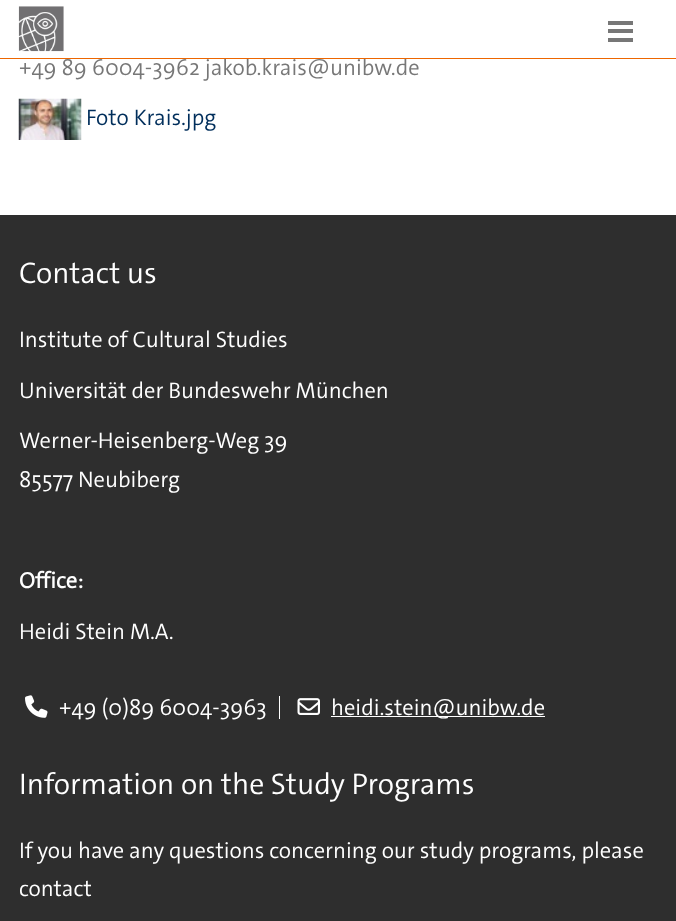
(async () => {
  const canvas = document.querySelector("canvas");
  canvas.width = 676;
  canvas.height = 921;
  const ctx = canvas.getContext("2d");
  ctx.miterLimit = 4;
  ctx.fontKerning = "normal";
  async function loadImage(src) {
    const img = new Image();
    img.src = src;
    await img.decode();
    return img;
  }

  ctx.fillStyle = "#ffffff";
  ctx.fillRect(0, 0, 676, 921);
  ctx.drawImage(await loadImage("img/1.png"), 18, 6, 46, 46);
  for (const [x, y, w, h, color] of [
    [608, 21, 25, 4, "#777777"],
    [608, 29, 25, 4, "#777777"],
    [608, 38, 25, 4, "#777777"],
  ]) {
    ctx.fillStyle = color;
    ctx.fillRect(x, y, w, h);
  }
  ctx.drawImage(await loadImage("img/2.png"), 18, 98, 64, 42);
  ctx.fillStyle = "#2e2e2e";
  ctx.fillRect(0, 215, 676, 706);
  ctx.fillStyle = "#ffffff";
  ctx.fillRect(279, 696, 1, 23);
  ctx.drawImage(await loadImage("img/3.png"), 25, 695, 23, 23);
  ctx.drawImage(await loadImage("img/4.png"), 297, 698, 23, 17);
  ctx.fillRect(331, 716, 214, 1);
  ctx.font = "300 22.5px 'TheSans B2'";
  ctx.fillStyle = "#777777";
  ctx.fillText("+49 89 6004-3962 jakob.krais@unibw.de", 19, 75);
  ctx.fillStyle = "#ed6600";
  ctx.fillRect(0, 58, 676, 1);
  ctx.fillStyle = "#002e5b";
  ctx.fillText("Foto Krais.jpg", 86, 125);
  ctx.font = "300 29.9px 'TheSans B2'";
  ctx.fillStyle = "#ffffff";
  ctx.fillText("Contact us", 19, 283);
  ctx.font = "300 22.5px 'TheSans B2'";
  for (const [text, x, y] of [
    ["Institute of Cultural Studies", 19, 347],
    ["Universität der Bundeswehr München", 19, 398],
    ["Werner-Heisenberg-Weg 39", 19, 448],
    ["85577 Neubiberg", 19, 487],
  ]) {
    ctx.fillText(text, x, y);
  }
  ctx.font = "bold 22.5px 'TheSans B2'";
  ctx.fillText("Office:", 19, 588);
  ctx.font = "300 22.5px 'TheSans B2'";
  for (const [text, x, y] of [
    ["Heidi Stein M.A.", 19, 639],
    ["+49 (0)89 6004-3963", 59, 715],
    ["heidi.stein@unibw.de", 331, 715],
  ]) {
    ctx.fillText(text, x, y);
  }
  ctx.font = "300 29.9px 'TheSans B2'";
  ctx.fillText("Information on the Study Programs", 19, 794);
  ctx.font = "300 22.5px 'TheSans B2'";
  ctx.fillText("If you have any questions concerning our study programs, please", 19, 858);
  ctx.fillText("contact", 19, 896);
})();
